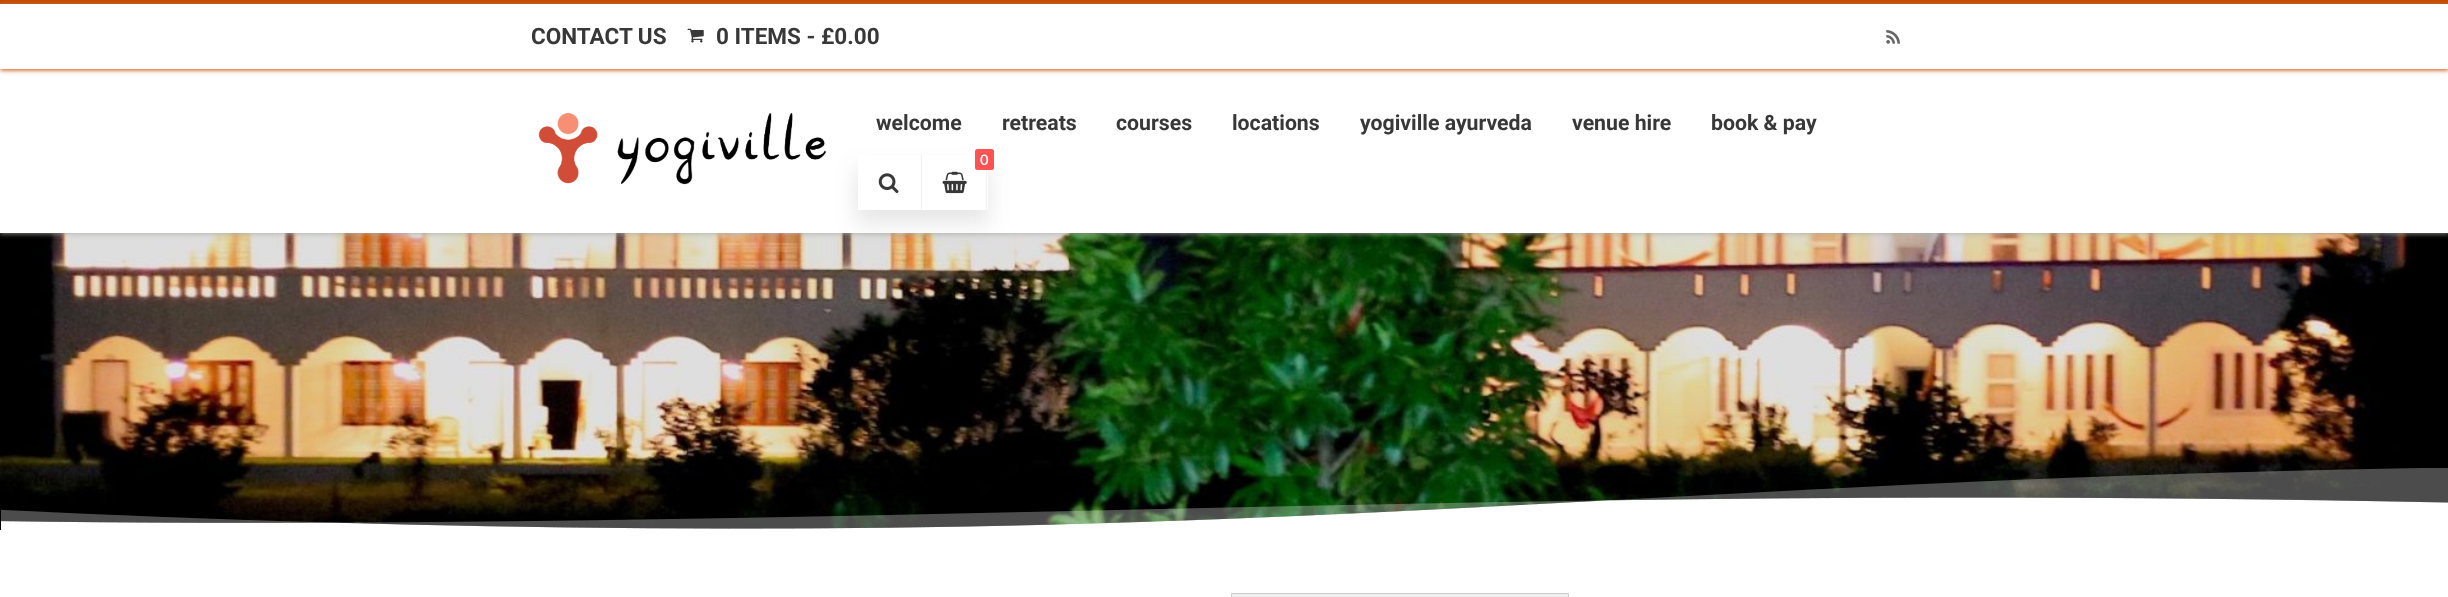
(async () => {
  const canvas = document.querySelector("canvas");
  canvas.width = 2448;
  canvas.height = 597;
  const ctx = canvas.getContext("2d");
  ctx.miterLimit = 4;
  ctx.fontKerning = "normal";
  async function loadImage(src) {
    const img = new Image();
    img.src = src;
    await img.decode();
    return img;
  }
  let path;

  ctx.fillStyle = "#ffffff";
  ctx.fillRect(0, 0, 2448, 597);
  ctx.fillStyle = "#c94900";
  ctx.fillRect(0, 0, 2448, 4);
  ctx.drawImage(await loadImage("img/6.png"), 0, 233, 2448, 297);
  ctx.save();
  path = new Path2D("M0 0H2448V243H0ZM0 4H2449V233H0Z");
  ctx.clip(path, "evenodd");
  ctx.fillStyle = "rgba(167, 169, 164, 0.75)";
  ctx.filter = "blur(2.5px)";
  ctx.beginPath();
  ctx.rect(0, 5, 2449, 229);
  ctx.fill();
  ctx.filter = "none";
  ctx.restore();
  ctx.save();
  path = new Path2D("M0 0H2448V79H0ZM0 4H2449V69H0Z");
  ctx.clip(path, "evenodd");
  ctx.filter = "blur(2.5px)";
  ctx.beginPath();
  ctx.rect(0, 5, 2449, 65);
  ctx.fill();
  ctx.filter = "none";
  ctx.restore();
  ctx.drawImage(await loadImage("img/1.png"), 687, 28, 17, 15);
  ctx.drawImage(await loadImage("img/2.png"), 1886, 30, 14, 14);
  ctx.drawImage(await loadImage("img/3.png"), 538, 113, 289, 72);
  ctx.save();
  path = new Path2D("M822 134H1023V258H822ZM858 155H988V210H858Z");
  ctx.clip(path, "evenodd");
  ctx.fillStyle = "rgba(64, 64, 64, 0.13)";
  ctx.filter = "blur(11px)";
  ctx.beginPath();
  ctx.rect(856, 168, 133, 56);
  ctx.fill();
  ctx.filter = "none";
  ctx.restore();
  ctx.fillStyle = "#f1f1f1";
  ctx.fillRect(921, 155, 1, 55);
  ctx.drawImage(await loadImage("img/4.png"), 878, 173, 21, 20);
  ctx.fillStyle = "#ff5252";
  ctx.beginPath();
  ctx.roundRect(975, 149, 19, 21, 2.5);
  ctx.fill();
  ctx.fillStyle = "#f1f1f1";
  ctx.fillRect(986, 170, 1, 40);
  ctx.drawImage(await loadImage("img/5.png"), 942, 171, 25, 23);
  ctx.drawImage(await loadImage("img/7.png"), 1, 468, 2447, 62);
  ctx.fillStyle = "#efefef";
  ctx.beginPath();
  ctx.rect(1231.5, 593.5, 337, 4);
  ctx.fill();
  ctx.strokeStyle = "#cccccc";
  ctx.stroke();
  ctx.font = "bold 22.5px Roboto";
  ctx.fillStyle = "#383838";
  ctx.fillText("CONTACT US", 531, 44);
  ctx.fillText("0 ITEMS - £0.00", 716, 44);
  ctx.font = "bold 21.25px Roboto";
  for (const [text, x, y] of [
    ["welcome", 876, 130],
    ["retreats", 1002, 130],
    ["courses", 1116, 130],
    ["locations", 1232, 130],
    ["yogiville ayurveda", 1360, 130],
    ["venue hire", 1572, 130],
    ["book & pay", 1711, 130],
  ]) {
    ctx.fillText(text, x, y);
  }
  ctx.font = "bold 14px Lato";
  ctx.fillStyle = "#ffffff";
  ctx.fillText("0", 980, 165);
})();
